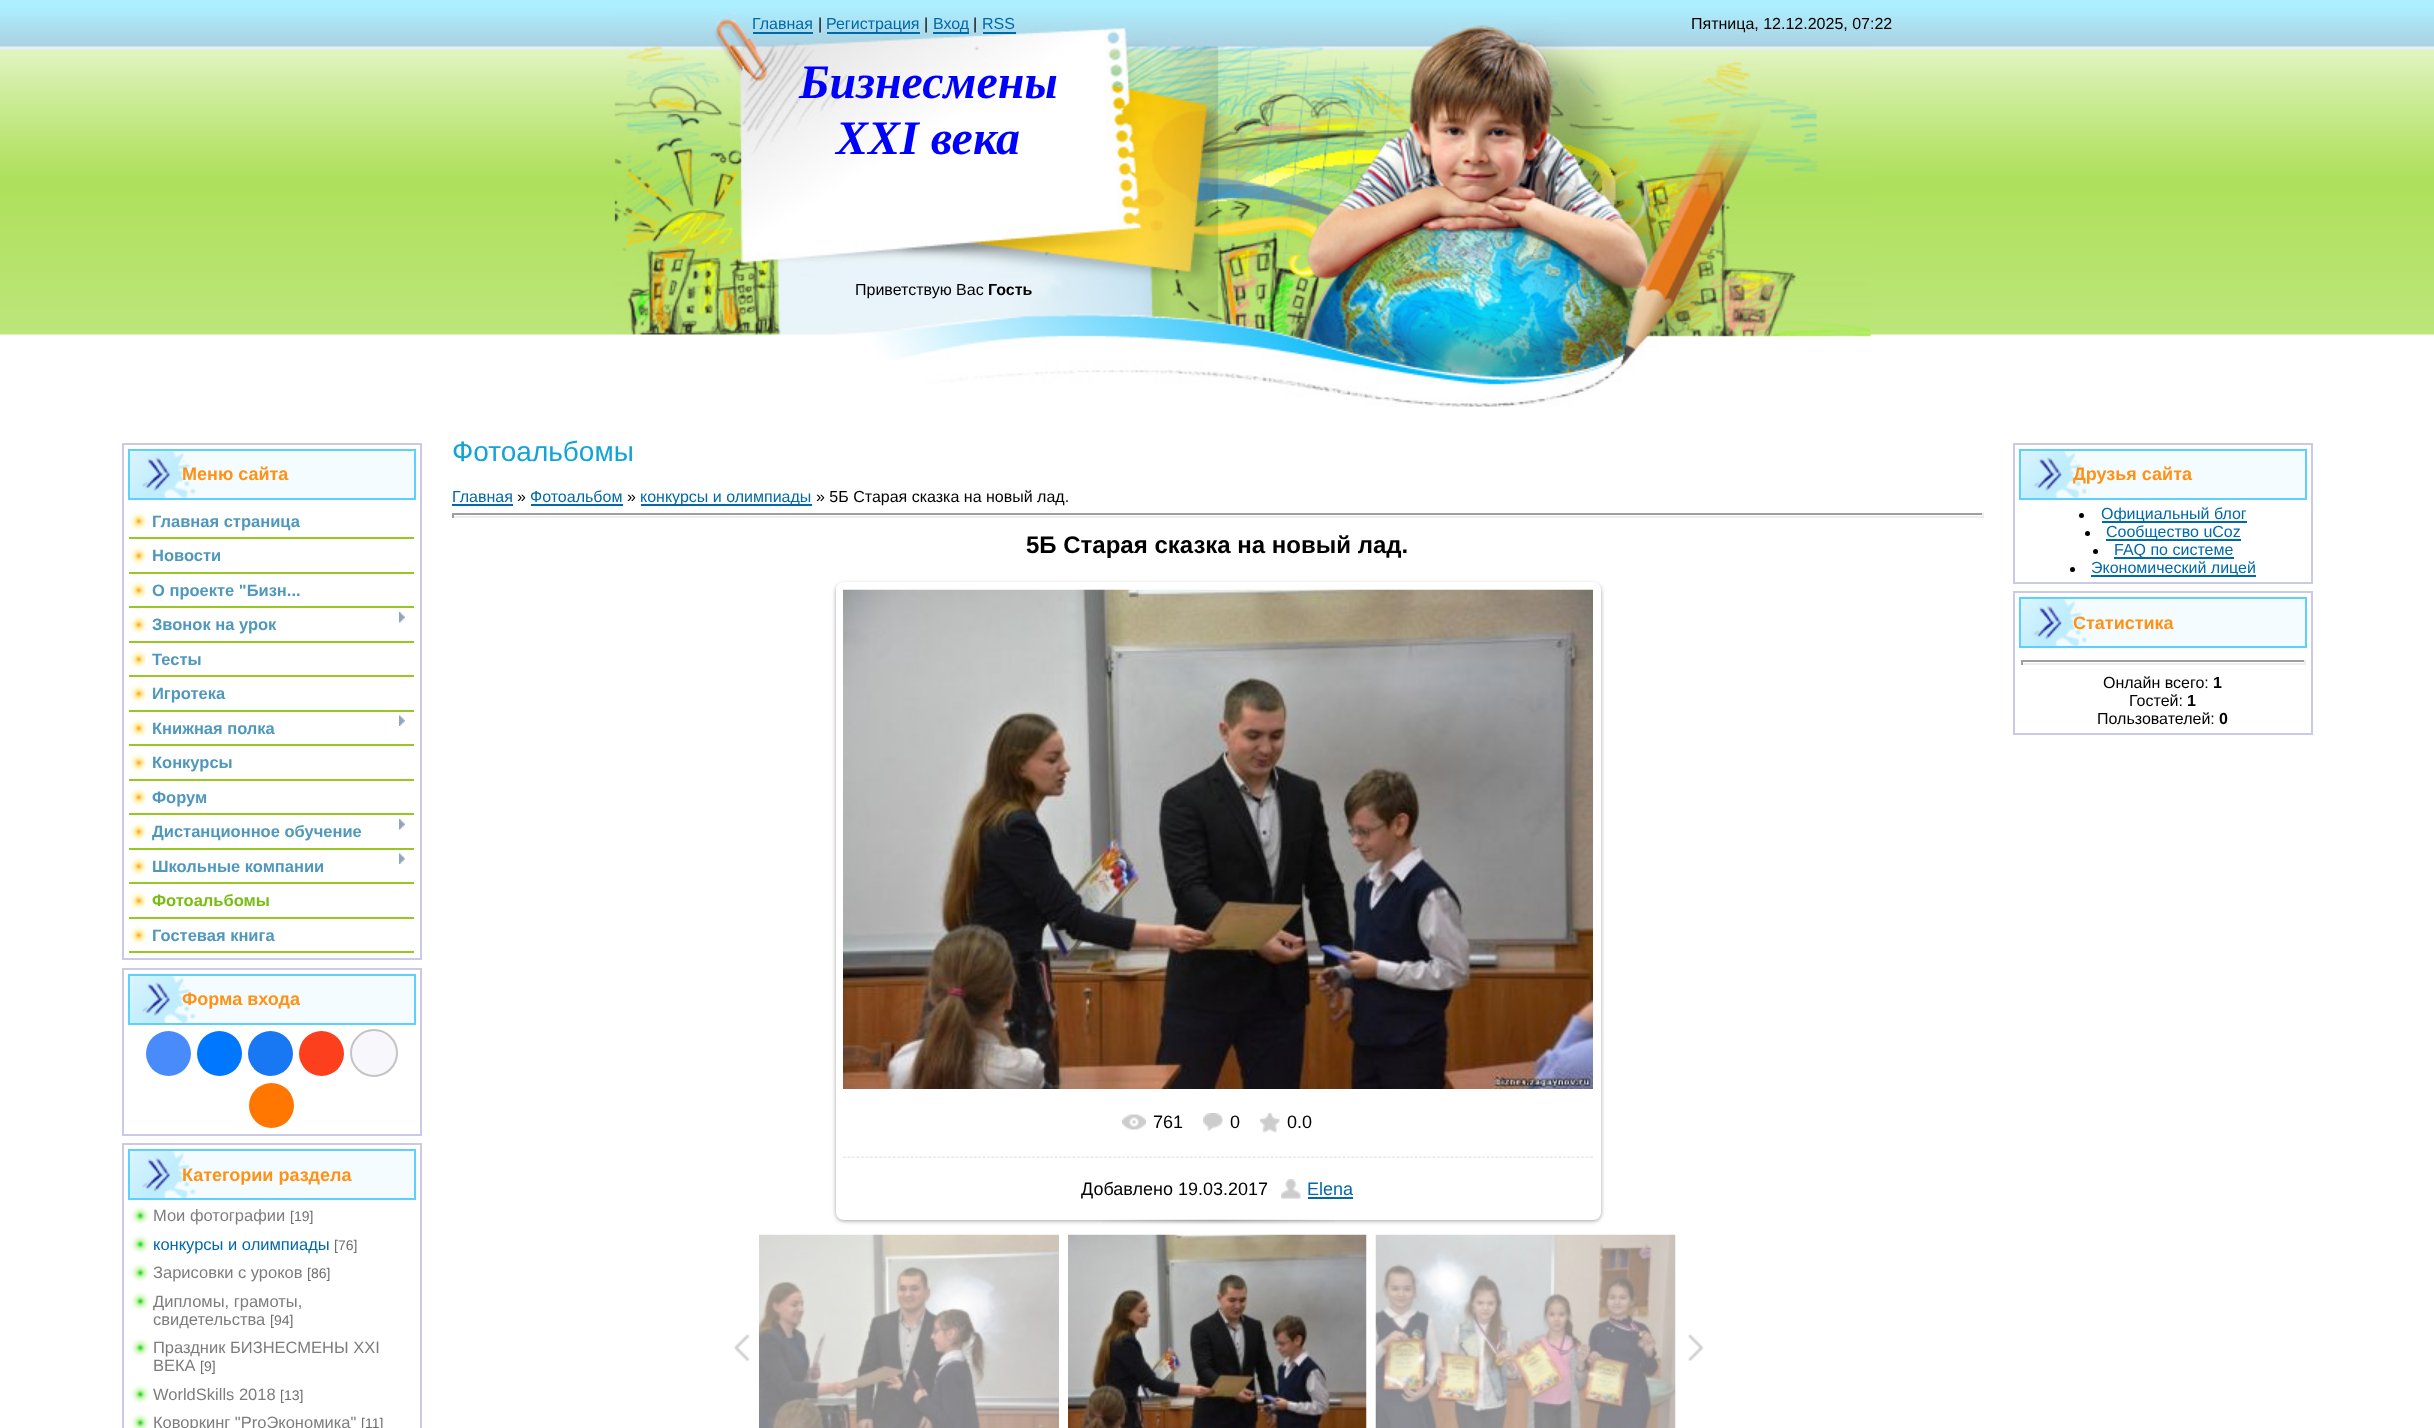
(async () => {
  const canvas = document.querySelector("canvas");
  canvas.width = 2434;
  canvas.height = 1428;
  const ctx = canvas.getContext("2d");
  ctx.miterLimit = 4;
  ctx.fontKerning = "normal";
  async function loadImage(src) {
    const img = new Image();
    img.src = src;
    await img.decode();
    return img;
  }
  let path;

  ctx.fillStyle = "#ffffff";
  ctx.fillRect(0, 0, 2434, 1428);
  ctx.drawImage(await loadImage("img/1.png"), 0, 0, 2434, 335);
  ctx.drawImage(await loadImage("img/2.png"), 614, 12, 1257, 395);
  for (const [x, y, w, h, color] of [
    [753, 32, 60, 2, "#0069a9"],
    [827, 32, 93, 2, "#0069a9"],
    [933, 32, 36, 2, "#0069a9"],
    [983, 32, 33, 2, "#0069a9"],
  ]) {
    ctx.fillStyle = color;
    ctx.fillRect(x, y, w, h);
  }
  ctx.strokeStyle = "#cacae6";
  ctx.lineWidth = 2;
  ctx.strokeRect(123, 444, 298, 515);
  ctx.fillStyle = "#f5fcff";
  ctx.fillRect(196, 451, 218, 47);
  ctx.drawImage(await loadImage("img/3.png"), 130, 451, 66, 47);
  ctx.strokeStyle = "#5bd1fc";
  ctx.strokeRect(129, 450, 286, 49);
  ctx.drawImage(await loadImage("img/4.png"), 129, 511, 17, 19);
  ctx.fillStyle = "#97c821";
  ctx.fillRect(129, 537, 285, 2);
  ctx.drawImage(await loadImage("img/5.png"), 129, 546, 17, 18);
  ctx.fillRect(129, 572, 285, 2);
  ctx.drawImage(await loadImage("img/4.png"), 129, 580, 17, 19);
  ctx.fillRect(129, 606, 285, 2);
  ctx.drawImage(await loadImage("img/5.png"), 129, 615, 17, 18);
  ctx.fillRect(129, 641, 285, 2);
  ctx.drawImage(await loadImage("img/6.png"), 399, 612, 6, 11);
  ctx.drawImage(await loadImage("img/4.png"), 129, 649, 17, 19);
  ctx.fillRect(129, 675, 285, 2);
  ctx.drawImage(await loadImage("img/5.png"), 129, 684, 17, 18);
  ctx.fillRect(129, 710, 285, 2);
  ctx.drawImage(await loadImage("img/4.png"), 129, 718, 17, 19);
  ctx.fillRect(129, 744, 285, 2);
  ctx.drawImage(await loadImage("img/7.png"), 399, 715, 6, 11);
  ctx.drawImage(await loadImage("img/5.png"), 129, 753, 17, 18);
  ctx.fillRect(129, 779, 285, 2);
  ctx.drawImage(await loadImage("img/4.png"), 129, 787, 17, 19);
  ctx.fillRect(129, 813, 285, 2);
  ctx.drawImage(await loadImage("img/5.png"), 129, 822, 17, 18);
  ctx.fillRect(129, 848, 285, 2);
  ctx.drawImage(await loadImage("img/6.png"), 399, 819, 6, 11);
  ctx.drawImage(await loadImage("img/4.png"), 129, 856, 17, 19);
  ctx.fillRect(129, 882, 285, 2);
  ctx.drawImage(await loadImage("img/7.png"), 399, 853, 6, 11);
  ctx.drawImage(await loadImage("img/5.png"), 129, 891, 17, 18);
  ctx.fillRect(129, 917, 285, 2);
  ctx.drawImage(await loadImage("img/4.png"), 129, 925, 17, 19);
  ctx.fillRect(129, 951, 285, 2);
  ctx.strokeStyle = "#cacae6";
  ctx.strokeRect(123, 969, 298, 166);
  ctx.fillStyle = "#f5fcff";
  ctx.fillRect(196, 976, 218, 47);
  ctx.drawImage(await loadImage("img/3.png"), 130, 976, 66, 47);
  ctx.strokeStyle = "#5bd1fc";
  ctx.strokeRect(129, 975, 286, 49);
  ctx.fillStyle = "#498bfa";
  ctx.beginPath();
  ctx.arc(168.5, 1053.5, 22.5, 0, Math.PI * 2);
  ctx.fill();
  ctx.fillStyle = "#0077ff";
  ctx.beginPath();
  ctx.arc(219.5, 1053.5, 22.5, 0, Math.PI * 2);
  ctx.fill();
  ctx.fillStyle = "#1877f2";
  ctx.beginPath();
  ctx.arc(270.5, 1053.5, 22.5, 0, Math.PI * 2);
  ctx.fill();
  ctx.fillStyle = "#fc3f1d";
  ctx.beginPath();
  ctx.arc(321.5, 1053.5, 22.5, 0, Math.PI * 2);
  ctx.fill();
  ctx.fillStyle = "#f8f8fc";
  ctx.beginPath();
  ctx.arc(374, 1053, 23, 0, Math.PI * 2);
  ctx.fill();
  ctx.strokeStyle = "#c4c4c4";
  ctx.stroke();
  ctx.fillStyle = "#ff7700";
  ctx.beginPath();
  ctx.arc(271.5, 1105.5, 22.5, 0, Math.PI * 2);
  ctx.fill();
  ctx.strokeStyle = "#cacae6";
  ctx.strokeRect(123, 1144, 298, 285);
  ctx.fillStyle = "#f5fcff";
  ctx.fillRect(196, 1151, 218, 47);
  ctx.drawImage(await loadImage("img/8.png"), 130, 1151, 66, 47);
  ctx.strokeStyle = "#5bd1fc";
  ctx.strokeRect(129, 1150, 286, 49);
  ctx.drawImage(await loadImage("img/9.png"), 131, 1206, 18, 18);
  ctx.drawImage(await loadImage("img/10.png"), 131, 1235, 18, 18);
  ctx.drawImage(await loadImage("img/9.png"), 131, 1263, 18, 18);
  ctx.drawImage(await loadImage("img/10.png"), 131, 1292, 18, 18);
  ctx.drawImage(await loadImage("img/9.png"), 131, 1338, 18, 18);
  ctx.drawImage(await loadImage("img/10.png"), 131, 1385, 18, 18);
  ctx.drawImage(await loadImage("img/11.png"), 131, 1413, 18, 15);
  for (const [x, y, w, h, color] of [
    [452, 504, 61, 2, "#0069a9"],
    [531, 504, 92, 2, "#0069a9"],
    [641, 504, 171, 2, "#0069a9"],
    [452, 513, 1531, 2, "#9f9f9f"],
    [1982, 513, 2, 5, "#eeeeee"],
    [452, 516, 1531, 2, "#eeeeee"],
    [452, 513, 2, 5, "#9f9f9f"],
  ]) {
    ctx.fillStyle = color;
    ctx.fillRect(x, y, w, h);
  }
  ctx.save();
  path = new Path2D("M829 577H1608V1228H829ZM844 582H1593C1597.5 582 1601 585.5 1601 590V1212C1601 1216.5 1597.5 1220 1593 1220H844C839.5 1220 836 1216.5 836 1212V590C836 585.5 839.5 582 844 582Z");
  ctx.clip(path, "evenodd");
  ctx.fillStyle = "rgba(0, 0, 0, 0.37)";
  ctx.filter = "blur(2px)";
  ctx.beginPath();
  ctx.roundRect(836, 584, 765, 637, 8);
  ctx.fill();
  ctx.filter = "none";
  ctx.restore();
  ctx.drawImage(await loadImage("img/12.png"), 843, 589, 750, 500);
  ctx.drawImage(await loadImage("img/13.png"), 1122, 1114, 24, 16);
  ctx.drawImage(await loadImage("img/14.png"), 1203, 1113, 20, 18);
  ctx.drawImage(await loadImage("img/15.png"), 1260, 1113, 20, 20);
  ctx.drawImage(await loadImage("img/16.png"), 843, 1156, 750, 2);
  ctx.drawImage(await loadImage("img/17.png"), 1281, 1179, 20, 20);
  ctx.fillStyle = "#0069a9";
  ctx.fillRect(1308, 1197, 45, 2);
  ctx.drawImage(await loadImage("img/18.png"), 1102, 1219, 233, 5);
  ctx.drawImage(await loadImage("img/19.png"), 733, 1334, 17, 27);
  ctx.drawImage(await loadImage("img/20.png"), 759, 1234, 300, 194);
  ctx.drawImage(await loadImage("img/21.png"), 1068, 1234, 299, 194);
  ctx.drawImage(await loadImage("img/22.png"), 1375, 1234, 301, 194);
  ctx.drawImage(await loadImage("img/23.png"), 1687, 1334, 17, 27);
  ctx.strokeStyle = "#cacae6";
  ctx.strokeRect(2014, 444, 298, 139);
  ctx.fillStyle = "#f5fcff";
  ctx.fillRect(2087, 451, 218, 47);
  ctx.drawImage(await loadImage("img/24.png"), 2021, 451, 66, 47);
  ctx.strokeStyle = "#5bd1fc";
  ctx.strokeRect(2020, 450, 286, 49);
  ctx.fillStyle = "#000000";
  ctx.beginPath();
  ctx.arc(2081.5, 515.5, 2.5, 0, Math.PI * 2);
  ctx.fill();
  ctx.fillStyle = "#0069a9";
  ctx.fillRect(2102, 521, 145, 2);
  ctx.fillStyle = "#000000";
  ctx.beginPath();
  ctx.arc(2087.5, 533.5, 2.5, 0, Math.PI * 2);
  ctx.fill();
  ctx.fillStyle = "#0069a9";
  ctx.fillRect(2106, 539, 135, 2);
  ctx.fillStyle = "#000000";
  ctx.beginPath();
  ctx.arc(2095.5, 551.5, 2.5, 0, Math.PI * 2);
  ctx.fill();
  ctx.fillStyle = "#0069a9";
  ctx.fillRect(2114, 557, 120, 2);
  ctx.fillStyle = "#000000";
  ctx.beginPath();
  ctx.arc(2072.5, 569.5, 2.5, 0, Math.PI * 2);
  ctx.fill();
  ctx.fillStyle = "#0069a9";
  ctx.fillRect(2091, 575, 165, 2);
  ctx.strokeStyle = "#cacae6";
  ctx.strokeRect(2014, 592, 298, 142);
  ctx.fillStyle = "#f5fcff";
  ctx.fillRect(2087, 599, 218, 47);
  ctx.drawImage(await loadImage("img/25.png"), 2021, 599, 66, 47);
  ctx.strokeStyle = "#5bd1fc";
  ctx.strokeRect(2020, 598, 286, 49);
  for (const [x, y, w, h, color] of [
    [2021, 660, 285, 2, "#9f9f9f"],
    [2304, 660, 2, 5, "#eeeeee"],
    [2021, 663, 285, 2, "#eeeeee"],
    [2021, 660, 2, 5, "#9f9f9f"],
  ]) {
    ctx.fillStyle = color;
    ctx.fillRect(x, y, w, h);
  }
  ctx.font = "16px Liberation Sans";
  ctx.fillStyle = "#0069a9";
  ctx.fillText("Главная", 752, 29);
  ctx.fillStyle = "#000000";
  ctx.fillText("|", 818, 29);
  ctx.fillStyle = "#0069a9";
  ctx.fillText("Регистрация", 826, 29);
  ctx.fillStyle = "#000000";
  ctx.fillText("|", 924, 29);
  ctx.fillStyle = "#0069a9";
  ctx.fillText("Вход", 933, 29);
  ctx.fillStyle = "#000000";
  ctx.fillText("|", 973, 29);
  ctx.fillStyle = "#0069a9";
  ctx.fillText("RSS", 982, 29);
  ctx.fillStyle = "#000000";
  ctx.fillText("Пятница, 12.12.2025, 07:22", 1691, 29);
  ctx.font = "italic bold 48px Liberation Serif";
  ctx.fillStyle = "#0000ff";
  ctx.fillText("Бизнесмены", 799, 98);
  ctx.fillText("XXI века", 836, 154);
  ctx.font = "16px Liberation Sans";
  ctx.fillStyle = "#000000";
  ctx.fillText("Приветствую Вас", 855, 295);
  ctx.font = "bold 16px Liberation Sans";
  ctx.fillText("Гость", 988, 295);
  ctx.font = "bold 18px Liberation Sans";
  ctx.fillStyle = "#ff9115";
  ctx.fillText("Меню сайта", 182, 480);
  ctx.font = "bold 16.5px Liberation Sans";
  ctx.fillStyle = "#4f98bc";
  for (const [text, x, y] of [
    ["Главная страница", 152, 527],
    ["Новости", 152, 561],
    ["О проекте \"Бизн...", 152, 596],
    ["Звонок на урок", 152, 630],
    ["Тесты", 152, 665],
    ["Игротека", 152, 699],
    ["Книжная полка", 152, 734],
    ["Конкурсы", 152, 768],
    ["Форум", 152, 803],
    ["Дистанционное обучение", 152, 837],
    ["Школьные компании", 152, 872],
  ]) {
    ctx.fillText(text, x, y);
  }
  ctx.fillStyle = "#79bd11";
  ctx.fillText("Фотоальбомы", 152, 906);
  ctx.fillStyle = "#4f98bc";
  ctx.fillText("Гостевая книга", 152, 941);
  ctx.font = "bold 18px Liberation Sans";
  ctx.fillStyle = "#ff9115";
  ctx.fillText("Форма входа", 182, 1005);
  ctx.fillText("Категории раздела", 182, 1181);
  ctx.font = "16.5px Liberation Sans";
  ctx.fillStyle = "#7d7d7d";
  ctx.fillText("Мои фотографии", 153, 1221);
  ctx.font = "14px Liberation Sans";
  ctx.fillStyle = "#6e6e6e";
  ctx.fillText("[19]", 290, 1221);
  ctx.font = "16.5px Liberation Sans";
  ctx.fillStyle = "#0069a9";
  ctx.fillText("конкурсы и олимпиады", 153, 1250);
  ctx.font = "14px Liberation Sans";
  ctx.fillStyle = "#6e6e6e";
  ctx.fillText("[76]", 334, 1250);
  ctx.font = "16.5px Liberation Sans";
  ctx.fillStyle = "#7d7d7d";
  ctx.fillText("Зарисовки с уроков", 153, 1278);
  ctx.font = "14px Liberation Sans";
  ctx.fillStyle = "#6e6e6e";
  ctx.fillText("[86]", 307, 1278);
  ctx.font = "16.5px Liberation Sans";
  ctx.fillStyle = "#7d7d7d";
  ctx.fillText("Дипломы, грамоты,", 153, 1307);
  ctx.fillText("свидетельства", 153, 1325);
  ctx.font = "14px Liberation Sans";
  ctx.fillStyle = "#6e6e6e";
  ctx.fillText("[94]", 270, 1325);
  ctx.font = "16.5px Liberation Sans";
  ctx.fillStyle = "#7d7d7d";
  ctx.fillText("Праздник БИЗНЕСМЕНЫ XXI", 153, 1353);
  ctx.fillText("ВЕКА", 153, 1371);
  ctx.font = "14px Liberation Sans";
  ctx.fillStyle = "#6e6e6e";
  ctx.fillText("[9]", 200, 1371);
  ctx.font = "16.5px Liberation Sans";
  ctx.fillStyle = "#7d7d7d";
  ctx.fillText("WorldSkills 2018", 153, 1400);
  ctx.font = "14px Liberation Sans";
  ctx.fillStyle = "#6e6e6e";
  ctx.fillText("[13]", 280, 1400);
  ctx.font = "16.5px Liberation Sans";
  ctx.fillStyle = "#7d7d7d";
  ctx.fillText("Коворкинг \"ProЭкономика\"", 153, 1428);
  ctx.font = "14px Liberation Sans";
  ctx.fillStyle = "#6e6e6e";
  ctx.fillText("[11]", 361, 1428);
  ctx.font = "28px Liberation Sans";
  ctx.fillStyle = "#12a4d8";
  ctx.fillText("Фотоальбомы", 452, 461);
  ctx.font = "16px Liberation Sans";
  ctx.fillStyle = "#0069a9";
  ctx.fillText("Главная", 452, 502);
  ctx.fillStyle = "#000000";
  ctx.fillText("»", 517, 502);
  ctx.fillStyle = "#0069a9";
  ctx.fillText("Фотоальбом", 530, 502);
  ctx.fillStyle = "#000000";
  ctx.fillText("»", 627, 502);
  ctx.fillStyle = "#0069a9";
  ctx.fillText("конкурсы и олимпиады", 640, 502);
  ctx.fillStyle = "#000000";
  ctx.fillText("» 5Б Старая сказка на новый лад.", 816, 502);
  ctx.font = "bold 24px Liberation Sans";
  ctx.fillText("5Б Старая сказка на новый лад.", 1026, 553);
  ctx.font = "18px Liberation Sans";
  for (const [text, x, y] of [
    ["761", 1153, 1128],
    ["0", 1230, 1128],
    ["0.0", 1287, 1128],
    ["Добавлено 19.03.2017", 1081, 1195],
  ]) {
    ctx.fillText(text, x, y);
  }
  ctx.fillStyle = "#0069a9";
  ctx.fillText("Elena", 1307, 1195);
  ctx.font = "bold 18px Liberation Sans";
  ctx.fillStyle = "#ff9115";
  ctx.fillText("Друзья сайта", 2073, 480);
  ctx.font = "16px Liberation Sans";
  ctx.fillStyle = "#0069a9";
  for (const [text, x, y] of [
    ["Официальный блог", 2101, 519],
    ["Сообщество uCoz", 2106, 537],
    ["FAQ по системе", 2114, 555],
    ["Экономический лицей", 2091, 573],
  ]) {
    ctx.fillText(text, x, y);
  }
  ctx.font = "bold 18px Liberation Sans";
  ctx.fillStyle = "#ff9115";
  ctx.fillText("Статистика", 2073, 629);
  ctx.font = "16px Liberation Sans";
  ctx.fillStyle = "#000000";
  ctx.fillText("Онлайн всего:", 2103, 688);
  ctx.font = "bold 16px Liberation Sans";
  ctx.fillText("1", 2213, 688);
  ctx.font = "16px Liberation Sans";
  ctx.fillText("Гостей:", 2129, 706);
  ctx.font = "bold 16px Liberation Sans";
  ctx.fillText("1", 2187, 706);
  ctx.font = "16px Liberation Sans";
  ctx.fillText("Пользователей:", 2097, 724);
  ctx.font = "bold 16px Liberation Sans";
  ctx.fillText("0", 2219, 724);
})();
